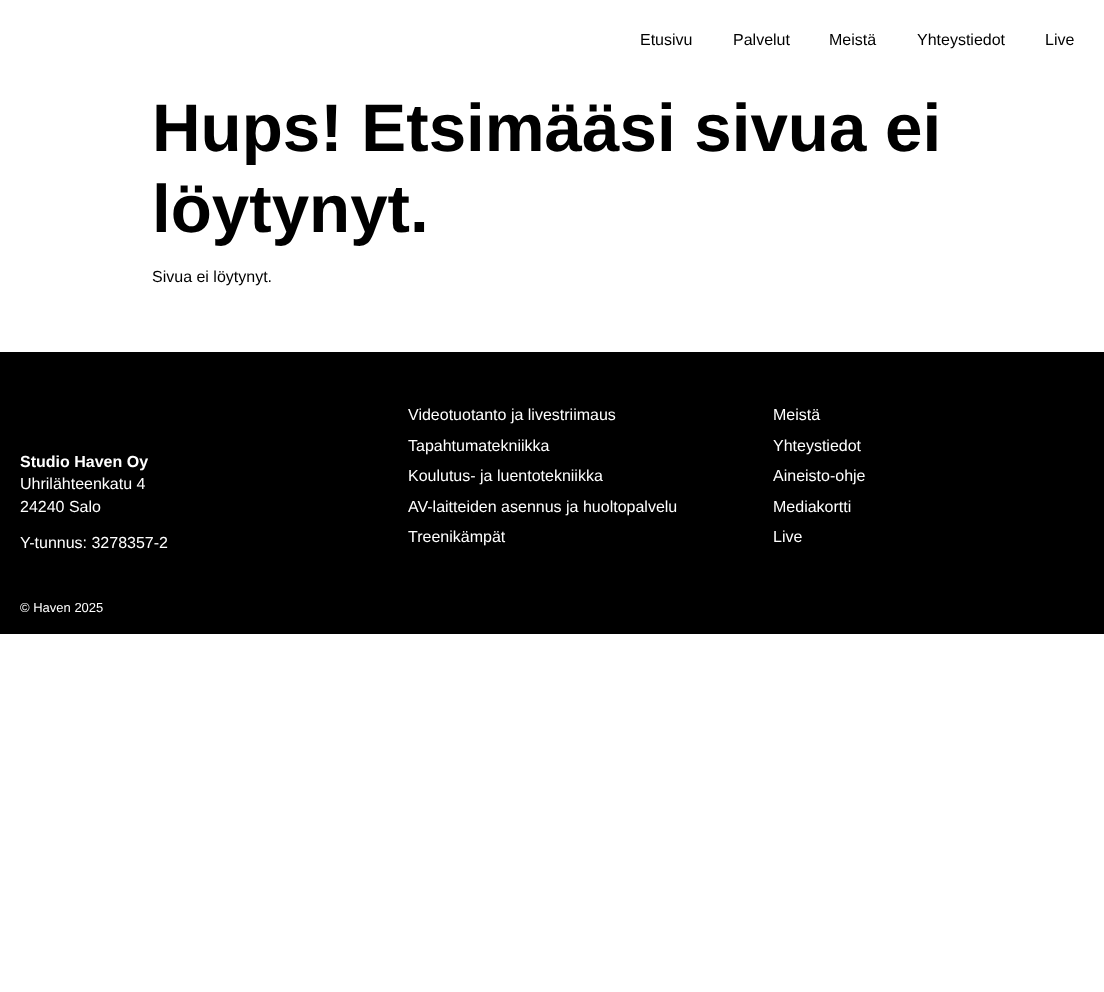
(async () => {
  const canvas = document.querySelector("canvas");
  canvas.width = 1104;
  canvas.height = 992;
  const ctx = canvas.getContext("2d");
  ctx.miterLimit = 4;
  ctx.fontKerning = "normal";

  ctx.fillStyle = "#ffffff";
  ctx.fillRect(0, 0, 1104, 992);
  ctx.fillStyle = "#000000";
  ctx.fillRect(0, 352, 1104, 282);
  ctx.font = "16px Liberation Sans";
  for (const [text, x, y] of [
    ["Etusivu", 640, 45],
    ["Palvelut", 733, 45],
    ["Meistä", 829, 45],
    ["Yhteystiedot", 917, 45],
    ["Live", 1045, 45],
  ]) {
    ctx.fillText(text, x, y);
  }
  ctx.font = "bold 67.3px Liberation Sans";
  ctx.fillText("Hups! Etsimääsi sivua ei", 152, 151);
  ctx.fillText("löytynyt.", 152, 232);
  ctx.font = "16px Liberation Sans";
  ctx.fillText("Sivua ei löytynyt.", 152, 282);
  ctx.font = "bold 16px Liberation Sans";
  ctx.fillStyle = "#ffffff";
  ctx.fillText("Studio Haven Oy", 20, 467);
  ctx.font = "16px Liberation Sans";
  for (const [text, x, y] of [
    ["Uhrilähteenkatu 4", 20, 489],
    ["24240 Salo", 20, 512],
    ["Y-tunnus: 3278357-2", 20, 548],
    ["Videotuotanto ja livestriimaus", 408, 420],
    ["Tapahtumatekniikka", 408, 451],
    ["Koulutus- ja luentotekniikka", 408, 481],
    ["AV-laitteiden asennus ja huoltopalvelu", 408, 512],
    ["Treenikämpät", 408, 542],
    ["Meistä", 773, 420],
    ["Yhteystiedot", 773, 451],
    ["Aineisto-ohje", 773, 481],
    ["Mediakortti", 773, 512],
    ["Live", 773, 542],
  ]) {
    ctx.fillText(text, x, y);
  }
  ctx.font = "13px Liberation Sans";
  ctx.fillText("© Haven 2025", 20, 612);
})();
